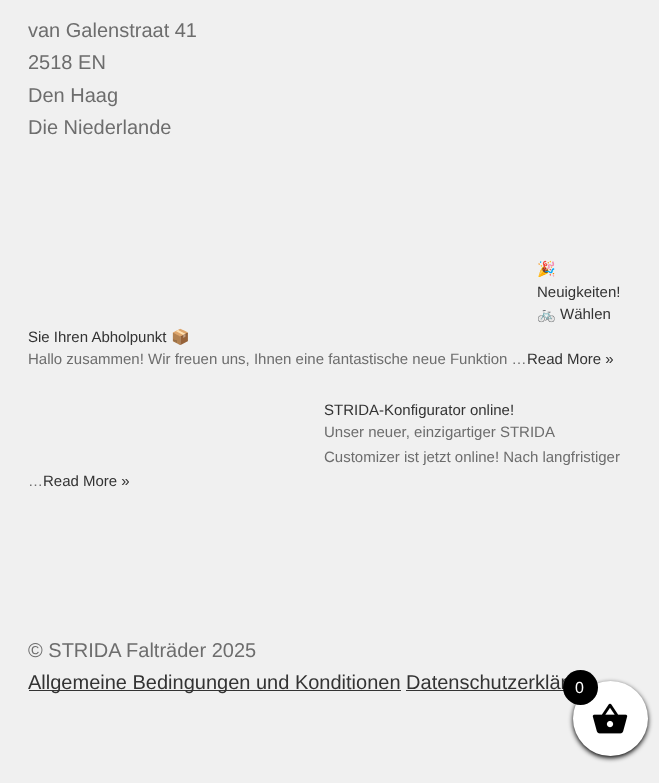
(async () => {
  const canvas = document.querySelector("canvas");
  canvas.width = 659;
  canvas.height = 783;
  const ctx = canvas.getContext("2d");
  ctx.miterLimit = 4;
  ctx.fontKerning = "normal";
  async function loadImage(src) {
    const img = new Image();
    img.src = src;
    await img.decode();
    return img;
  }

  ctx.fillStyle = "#f0f0f0";
  ctx.fillRect(0, 0, 659, 783);
  ctx.fillStyle = "#333333";
  ctx.fillRect(29, 690, 372, 1);
  ctx.fillRect(406, 690, 158, 1);
  ctx.fillStyle = "#000000";
  ctx.filter = "blur(2.5px)";
  ctx.beginPath();
  ctx.roundRect(573, 683, 75, 75, 37.5);
  ctx.fill();
  ctx.filter = "none";
  ctx.fillStyle = "#ffffff";
  ctx.beginPath();
  ctx.arc(610.5, 718.5, 37.5, 0, Math.PI * 2);
  ctx.fill();
  ctx.drawImage(await loadImage("img/1.png"), 592, 703, 36, 31);
  ctx.font = "20px Liberation Sans";
  ctx.fillStyle = "#6d6d6d";
  for (const [text, x, y] of [
    ["van Galenstraat 41", 28, 37],
    ["2518 EN", 28, 69],
    ["Den Haag", 28, 102],
    ["Die Niederlande", 28, 134],
  ]) {
    ctx.fillText(text, x, y);
  }
  ctx.font = "15px Noto Color Emoji";
  ctx.fillStyle = "#333333";
  ctx.fillText("🎉", 537, 274);
  ctx.font = "15px Liberation Sans";
  ctx.fillText("Neuigkeiten!", 537, 297);
  ctx.font = "15px Noto Color Emoji";
  ctx.fillText("🚲", 537, 319);
  ctx.font = "15px Liberation Sans";
  ctx.fillText("Wählen", 560, 319);
  ctx.fillText("Sie Ihren Abholpunkt", 28, 342);
  ctx.font = "15px Noto Color Emoji";
  ctx.fillText("📦", 171, 342);
  ctx.font = "15px Liberation Sans";
  ctx.fillStyle = "#6d6d6d";
  ctx.fillText("Hallo zusammen! Wir freuen uns, Ihnen eine fantastische neue Funktion …", 28, 364);
  ctx.fillStyle = "#333333";
  ctx.fillText("Read More »", 527, 364);
  ctx.fillText("STRIDA-Konfigurator online!", 324, 415);
  ctx.fillStyle = "#6d6d6d";
  for (const [text, x, y] of [
    ["Unser neuer, einzigartiger STRIDA", 324, 437],
    ["Customizer ist jetzt online! Nach langfristiger", 324, 462],
    ["…", 28, 486],
  ]) {
    ctx.fillText(text, x, y);
  }
  ctx.fillStyle = "#333333";
  ctx.fillText("Read More »", 43, 486);
  ctx.font = "20px Liberation Sans";
  ctx.fillStyle = "#6d6d6d";
  ctx.fillText("© STRIDA Falträder 2025", 28, 657);
  ctx.fillStyle = "#333333";
  ctx.fillText("Allgemeine Bedingungen und Konditionen Datenschutzerklär", 28, 689);
  ctx.fillStyle = "#000000";
  ctx.beginPath();
  ctx.arc(580.5, 687.5, 17.5, 0, Math.PI * 2);
  ctx.fill();
  ctx.font = "16px Liberation Sans";
  ctx.fillStyle = "#ffffff";
  ctx.fillText("0", 575, 693);
})();
